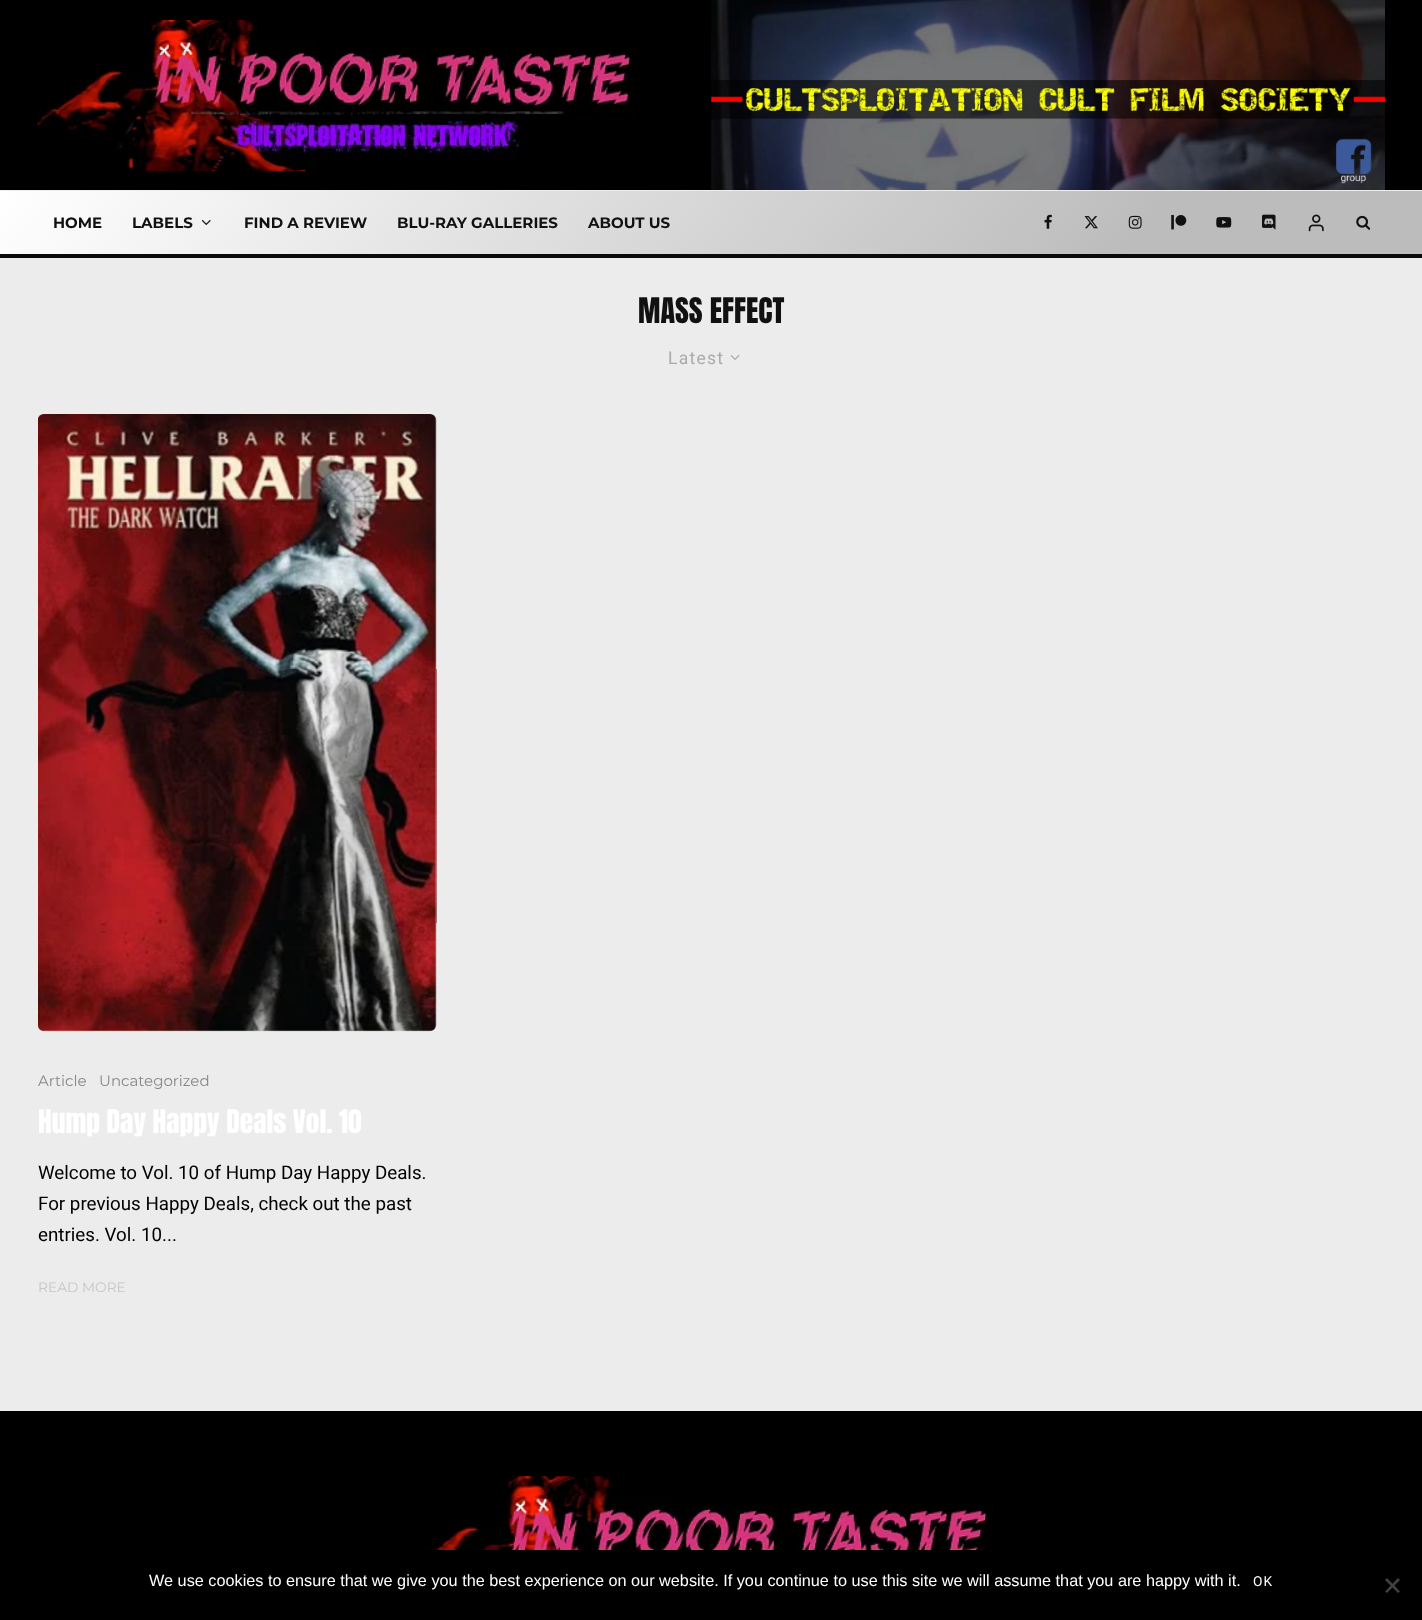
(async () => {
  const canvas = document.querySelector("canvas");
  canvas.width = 1422;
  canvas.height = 1620;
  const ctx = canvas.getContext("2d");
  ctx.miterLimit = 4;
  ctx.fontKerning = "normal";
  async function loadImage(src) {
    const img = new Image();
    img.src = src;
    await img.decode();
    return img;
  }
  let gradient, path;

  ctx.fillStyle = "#000000";
  ctx.fillRect(0, 0, 1422, 1620);
  ctx.drawImage(await loadImage("img/1.png"), 37, 20, 601, 152);
  ctx.drawImage(await loadImage("img/2.png"), 711, 0, 674, 190);
  gradient = ctx.createLinearGradient(278, -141, 1144, 586);
  gradient.addColorStop(0, "#ffffff");
  gradient.addColorStop(0.8, "#bcbcbc");
  ctx.fillStyle = gradient;
  ctx.fillRect(0, 191, 1422, 63);
  ctx.fillStyle = "#eeeeee";
  ctx.fillRect(0, 190, 1422, 1);
  ctx.fillStyle = "#0a0a0a";
  ctx.fillRect(0, 254, 1422, 4);
  ctx.drawImage(await loadImage("img/3.png"), 201, 220, 10, 5);
  ctx.drawImage(await loadImage("img/4.png"), 1044, 214, 8, 15);
  ctx.drawImage(await loadImage("img/5.png"), 1084, 216, 14, 13);
  ctx.drawImage(await loadImage("img/6.png"), 1128, 215, 14, 14);
  ctx.drawImage(await loadImage("img/7.png"), 1171, 215, 16, 15);
  ctx.drawImage(await loadImage("img/8.png"), 1216, 217, 16, 11);
  ctx.drawImage(await loadImage("img/9.png"), 1262, 214, 14, 16);
  ctx.drawImage(await loadImage("img/10.png"), 1308, 214, 16, 18);
  ctx.drawImage(await loadImage("img/11.png"), 1356, 215, 15, 15);
  ctx.fillStyle = "#ececec";
  ctx.fillRect(0, 258, 1422, 1153);
  ctx.drawImage(await loadImage("img/12.png"), 730, 355, 10, 5);
  ctx.drawImage(await loadImage("img/13.png"), 38, 414, 399, 618);
  ctx.drawImage(await loadImage("img/14.png"), 393, 1476, 601, 74);
  ctx.fillStyle = "#404040";
  path = new Path2D("M1398 1578L1400 1580L1387 1593L1385 1591.5Z");
  ctx.fill(path);
  path = new Path2D("M1385 1580L1387 1578L1400 1591.5L1398 1593Z");
  ctx.fill(path);
  ctx.font = "bold 15px Montserrat";
  ctx.fillStyle = "#111111";
  for (const [text, x, y] of [
    ["HOME", 53, 228],
    ["LABELS", 132, 228],
    ["FIND A REVIEW", 244, 228],
    ["BLU-RAY GALLERIES", 397, 228],
    ["ABOUT US", 588, 228],
  ]) {
    ctx.fillText(text, x, y);
  }
  ctx.font = "30px Anton";
  ctx.fillText("MASS EFFECT", 638, 323);
  ctx.letterSpacing = "1.25px";
  ctx.font = "17.5px Roboto";
  ctx.fillStyle = "#aaaaaa";
  ctx.fillText("Latest", 668, 364);
  ctx.letterSpacing = "0px";
  ctx.font = "15px Montserrat";
  ctx.fillStyle = "#888888";
  ctx.fillText("Article", 38, 1086);
  ctx.fillText("Uncategorized", 99, 1086);
  ctx.font = "27.5px Anton";
  ctx.fillStyle = "#ffffff";
  ctx.fillText("Hump Day Happy Deals Vol. 10", 38, 1133);
  ctx.font = "18.75px Roboto";
  ctx.fillStyle = "#000000";
  for (const [text, x, y] of [
    ["Welcome to Vol. 10 of Hump Day Happy Deals.", 38, 1179],
    ["For previous Happy Deals, check out the past", 38, 1210],
    ["entries. Vol. 10...", 38, 1241],
  ]) {
    ctx.fillText(text, x, y);
  }
  ctx.font = "13.75px Montserrat";
  ctx.fillStyle = "#c6c6c6";
  ctx.fillText("READ MORE", 38, 1292);
  ctx.font = "16.25px Liberation Sans";
  ctx.fillStyle = "#ffffff";
  ctx.fillText("We use cookies to ensure that we give you the best experience on our website. If you continue to use this site we will assume that you are happy with it.", 149, 1586);
  ctx.letterSpacing = "1px";
  ctx.font = "13.75px Roboto";
  ctx.fillText("OK", 1253, 1586);
})();
